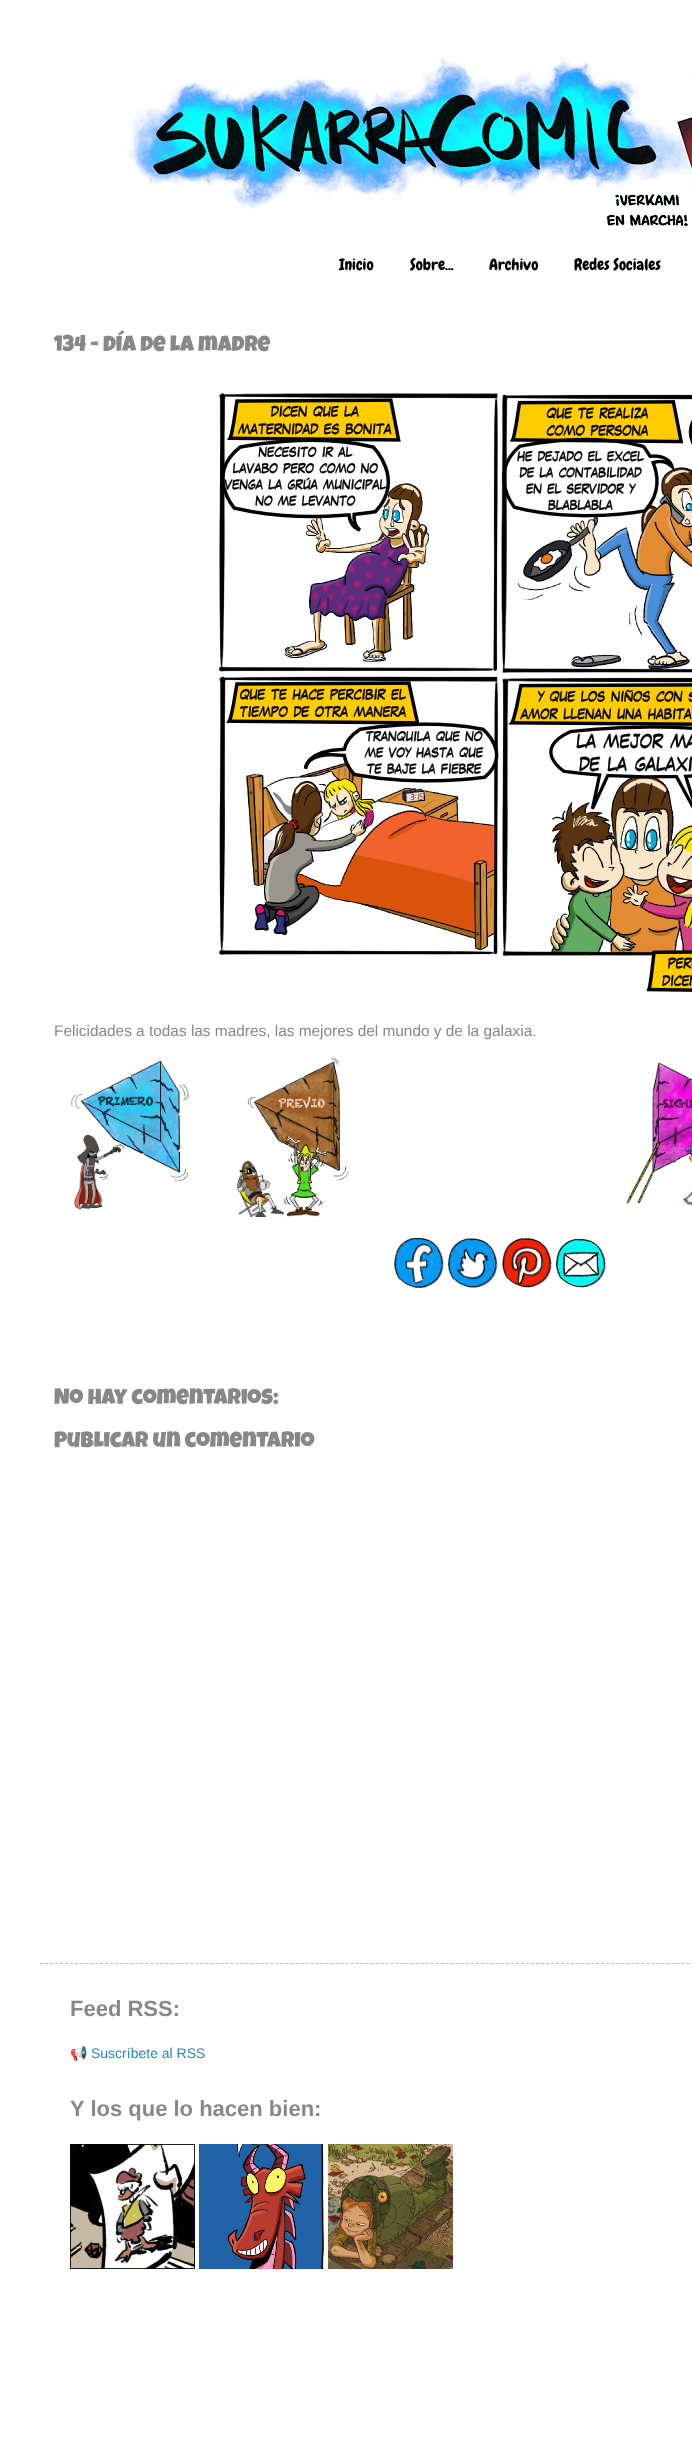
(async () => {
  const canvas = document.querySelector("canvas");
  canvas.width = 692;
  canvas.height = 2463;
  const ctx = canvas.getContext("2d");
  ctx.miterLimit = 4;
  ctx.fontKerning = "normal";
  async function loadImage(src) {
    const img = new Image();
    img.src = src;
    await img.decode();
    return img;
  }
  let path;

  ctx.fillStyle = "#ffffff";
  ctx.fillRect(0, 0, 692, 2463);
  ctx.drawImage(await loadImage("img/1.png"), 126, 56, 566, 170);
  ctx.drawImage(await loadImage("img/2.png"), 218, 393, 474, 599);
  ctx.drawImage(await loadImage("img/3.png"), 71, 1060, 118, 150);
  ctx.drawImage(await loadImage("img/4.png"), 237, 1057, 112, 160);
  ctx.drawImage(await loadImage("img/5.png"), 626, 1062, 66, 143);
  ctx.drawImage(await loadImage("img/6.png"), 394, 1238, 50, 50);
  ctx.drawImage(await loadImage("img/7.png"), 448, 1238, 50, 50);
  ctx.drawImage(await loadImage("img/8.png"), 502, 1238, 50, 50);
  ctx.drawImage(await loadImage("img/9.png"), 556, 1238, 50, 50);
  path = new Path2D("M40 1963.5H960");
  ctx.strokeStyle = "#bbbbbb";
  ctx.setLineDash([3, 2.01]);
  ctx.stroke(path);
  ctx.drawImage(await loadImage("img/10.png"), 70, 2144, 125, 125);
  ctx.drawImage(await loadImage("img/11.png"), 199, 2144, 125, 125);
  ctx.drawImage(await loadImage("img/12.png"), 328, 2144, 125, 125);
  ctx.font = "16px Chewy";
  ctx.fillStyle = "#000000";
  for (const [text, x, y] of [
    ["Inicio", 339, 270],
    ["Sobre...", 410, 270],
    ["Archivo", 489, 270],
    ["Redes Sociales", 574, 270],
  ]) {
    ctx.fillText(text, x, y);
  }
  ctx.font = "22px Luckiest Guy";
  ctx.fillStyle = "#888888";
  ctx.fillText("134 - Día de la madre", 54, 351);
  ctx.font = "15.4px Liberation Sans";
  ctx.fillText("Felicidades a todas las madres, las mejores del mundo y de la galaxia.", 54, 1036);
  ctx.font = "22px Luckiest Guy";
  ctx.fillText("No hay comentarios:", 54, 1404);
  ctx.fillText("Publicar un comentario", 54, 1447);
  ctx.font = "bold 22px Liberation Sans";
  ctx.fillText("Feed RSS:", 70, 2016);
  ctx.font = "14px Noto Color Emoji";
  ctx.fillStyle = "#2288bb";
  ctx.fillText("📢", 70, 2058);
  ctx.font = "14px Liberation Sans";
  ctx.fillText("Suscríbete al RSS", 91, 2058);
  ctx.font = "bold 22px Liberation Sans";
  ctx.fillStyle = "#888888";
  ctx.fillText("Y los que lo hacen bien:", 70, 2116);
})();
